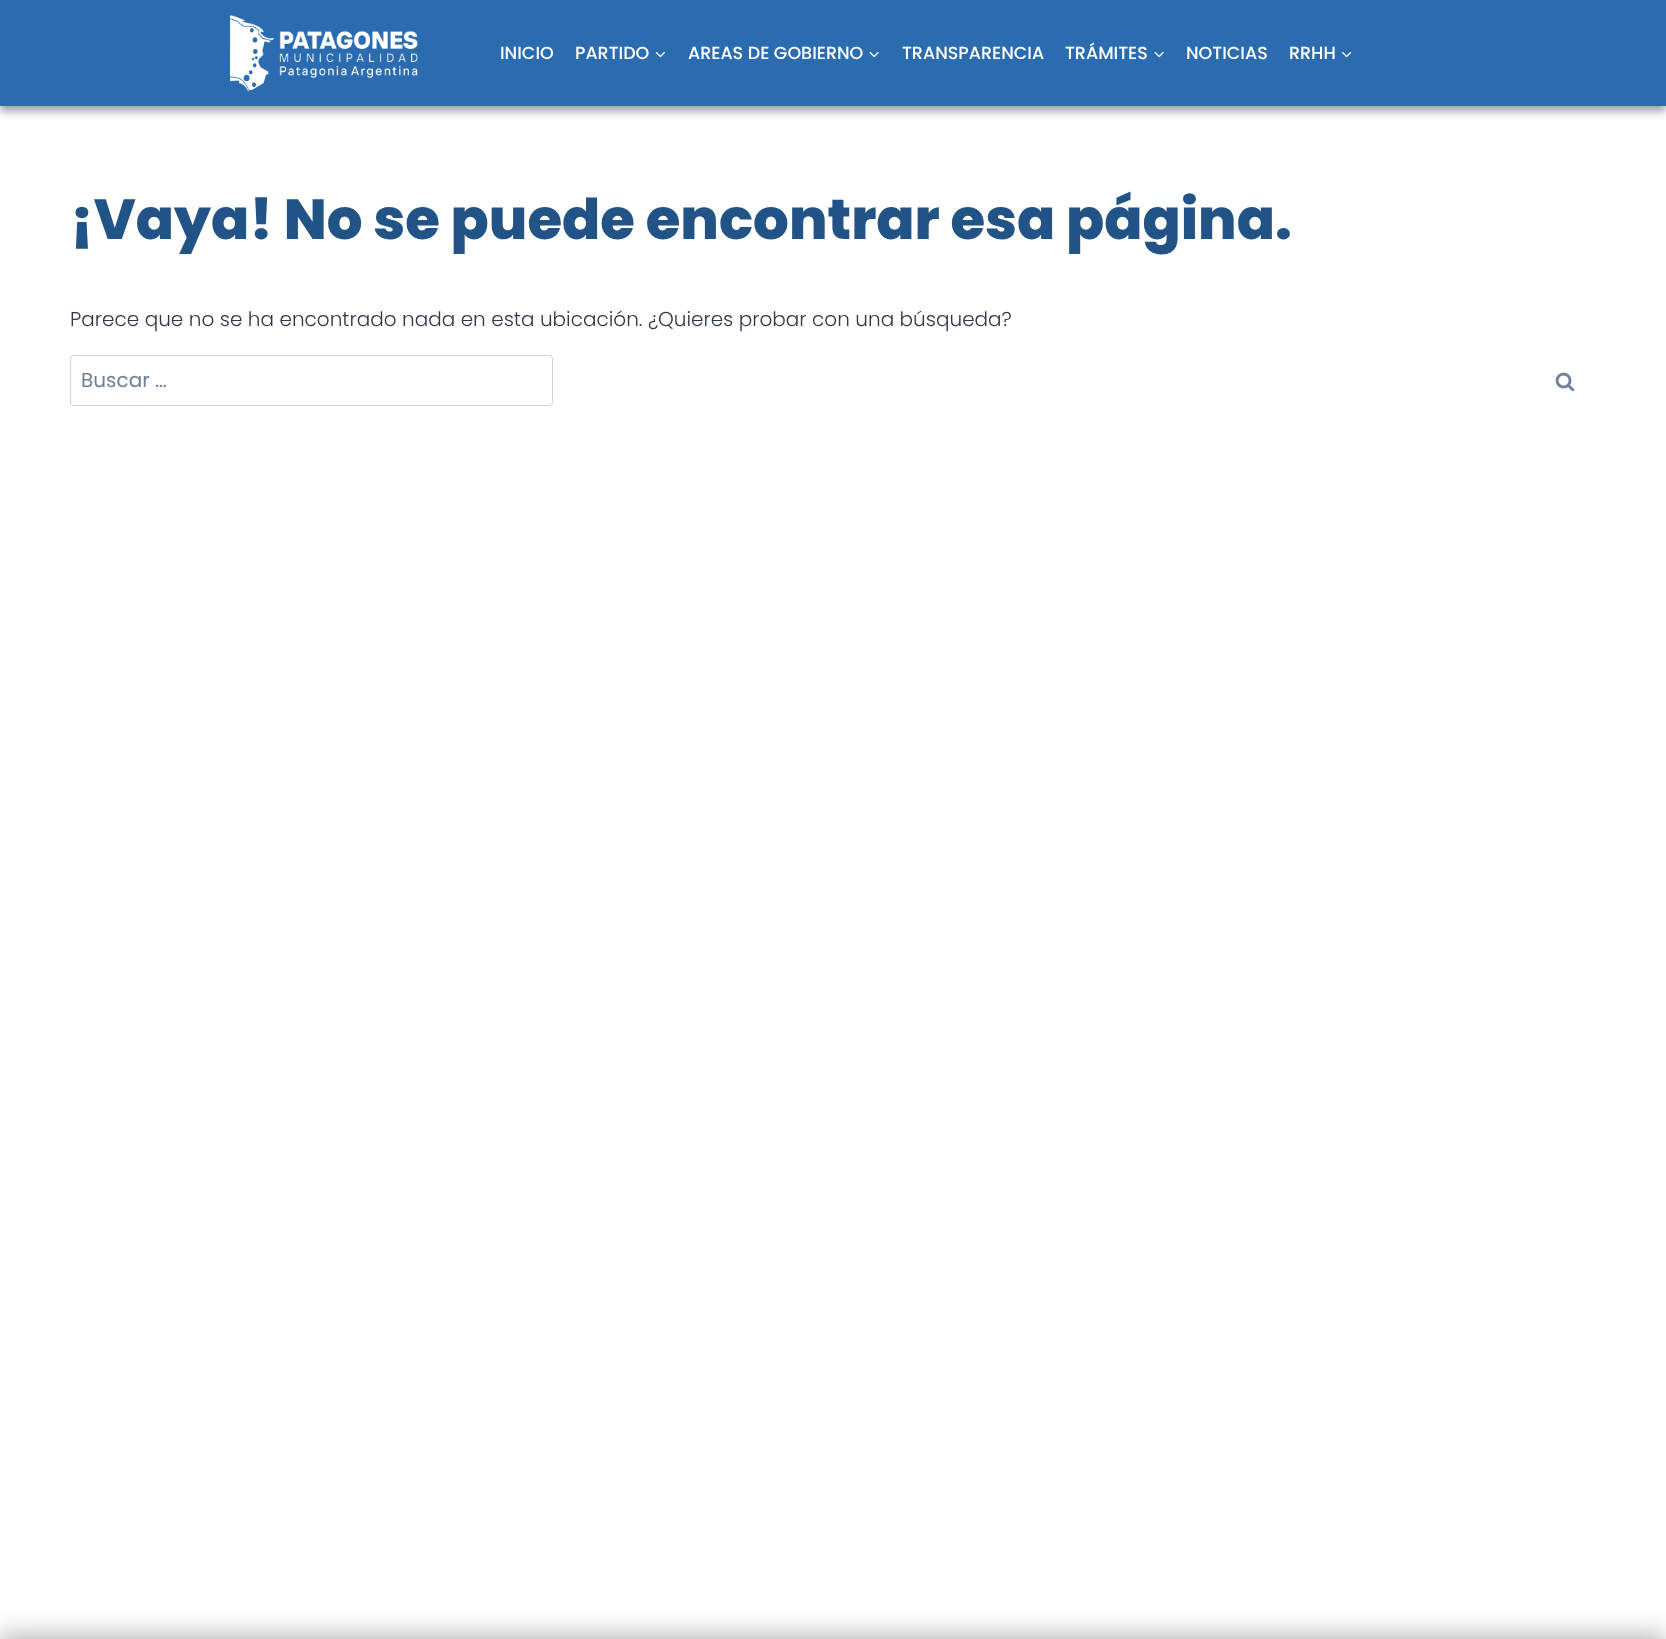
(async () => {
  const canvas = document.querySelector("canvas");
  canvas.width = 1666;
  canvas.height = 1639;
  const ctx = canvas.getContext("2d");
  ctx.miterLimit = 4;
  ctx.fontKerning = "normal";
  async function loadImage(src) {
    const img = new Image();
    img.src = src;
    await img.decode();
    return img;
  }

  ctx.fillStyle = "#ffffff";
  ctx.fillRect(0, 0, 1666, 1639);
  ctx.fillStyle = "rgba(0, 0, 0, 0.4)";
  ctx.filter = "blur(5px)";
  ctx.beginPath();
  ctx.rect(0, 5, 1666, 106);
  ctx.fill();
  ctx.filter = "none";
  ctx.fillStyle = "#2b6cb0";
  ctx.fillRect(0, 0, 1666, 106);
  ctx.drawImage(await loadImage("img/1.png"), 230, 15, 188, 77);
  ctx.drawImage(await loadImage("img/2.png"), 655, 52, 10, 6);
  ctx.drawImage(await loadImage("img/3.png"), 869, 52, 10, 6);
  ctx.drawImage(await loadImage("img/3.png"), 1154, 52, 10, 6);
  ctx.drawImage(await loadImage("img/4.png"), 1342, 52, 10, 6);
  ctx.beginPath();
  ctx.roundRect(70.5, 355.5, 482, 50, 3.5);
  ctx.strokeStyle = "#cbd5e0";
  ctx.stroke();
  ctx.drawImage(await loadImage("img/5.png"), 1555, 372, 20, 19);
  ctx.fillStyle = "rgba(0, 0, 0, 0.3)";
  ctx.filter = "blur(12.5px)";
  ctx.beginPath();
  ctx.rect(0, 1635, 1666, 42);
  ctx.fill();
  ctx.filter = "none";
  ctx.font = "500 17.5px Poppins";
  ctx.fillStyle = "#ffffff";
  for (const [text, x, y] of [
    ["INICIO", 500, 59],
    ["PARTIDO", 575, 59],
    ["AREAS DE GOBIERNO", 688, 59],
    ["TRANSPARENCIA", 902, 59],
    ["TRÁMITES", 1065, 59],
    ["NOTICIAS", 1186, 59],
    ["RRHH", 1289, 59],
  ]) {
    ctx.fillText(text, x, y);
  }
  ctx.font = "800 56.25px Poppins";
  ctx.fillStyle = "#215387";
  ctx.fillText("¡Vaya! No se puede encontrar esa página.", 70, 239);
  ctx.font = "300 20px Poppins";
  ctx.fillStyle = "#2d3748";
  ctx.fillText("Parece que no se ha encontrado nada en esta ubicación. ¿Quieres probar con una búsqueda?", 70, 326);
  ctx.font = "20px Poppins";
  ctx.fillStyle = "#718096";
  ctx.fillText("Buscar …", 81, 387);
})();
